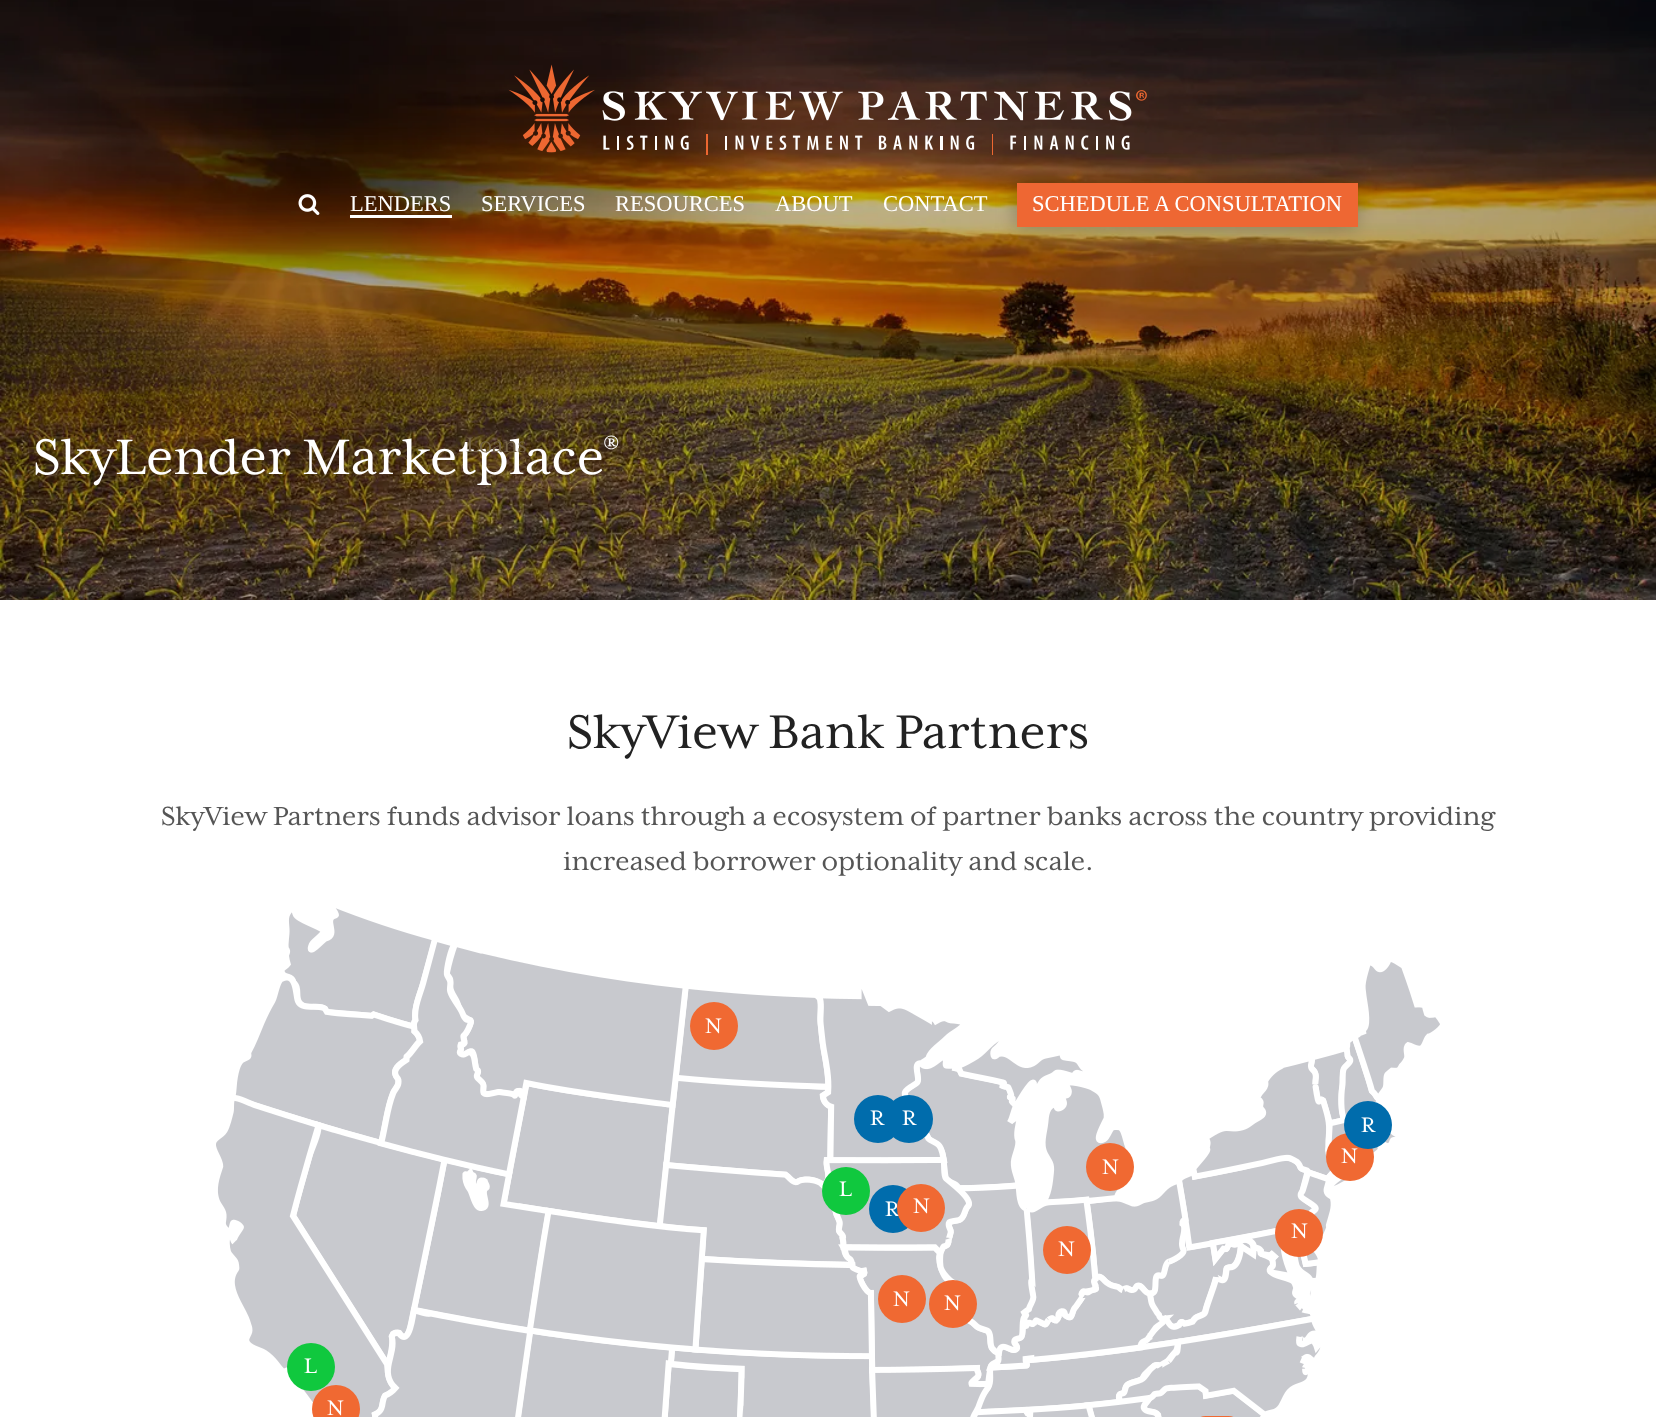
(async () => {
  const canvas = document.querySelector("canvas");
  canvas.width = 1656;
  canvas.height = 1417;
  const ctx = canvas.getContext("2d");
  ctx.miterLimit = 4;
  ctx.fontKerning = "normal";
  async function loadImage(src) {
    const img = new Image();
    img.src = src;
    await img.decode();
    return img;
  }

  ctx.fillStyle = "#ffffff";
  ctx.fillRect(0, 0, 1656, 1417);
  ctx.drawImage(await loadImage("img/3.png"), 0, 0, 1656, 600);
  ctx.drawImage(await loadImage("img/1.png"), 508, 64, 639, 91);
  ctx.drawImage(await loadImage("img/2.png"), 298, 194, 22, 21);
  ctx.fillRect(350, 215, 102, 3);
  ctx.fillStyle = "rgba(0, 0, 0, 0.25)";
  ctx.filter = "blur(9.5px)";
  ctx.beginPath();
  ctx.rect(1016, 185, 340, 43);
  ctx.fill();
  ctx.filter = "none";
  ctx.fillStyle = "#ee6733";
  ctx.fillRect(1017, 183, 341, 44);
  ctx.drawImage(await loadImage("img/4.png"), 216, 908, 1224, 509);
  ctx.fillStyle = "#f06932";
  ctx.beginPath();
  ctx.arc(714, 1026, 24, 0, Math.PI * 2);
  ctx.fill();
  ctx.fillStyle = "#006cac";
  ctx.beginPath();
  ctx.arc(878, 1119, 24, 0, Math.PI * 2);
  ctx.fill();
  ctx.beginPath();
  ctx.arc(909, 1119, 24, 0, Math.PI * 2);
  ctx.fill();
  ctx.fillStyle = "#f06932";
  ctx.beginPath();
  ctx.arc(1350, 1157, 24, 0, Math.PI * 2);
  ctx.fill();
  ctx.beginPath();
  ctx.arc(1110, 1167, 24, 0, Math.PI * 2);
  ctx.fill();
  ctx.fillStyle = "#006cac";
  ctx.beginPath();
  ctx.arc(893, 1209, 24, 0, Math.PI * 2);
  ctx.fill();
  ctx.fillStyle = "#10c83e";
  ctx.beginPath();
  ctx.arc(846, 1191, 24, 0, Math.PI * 2);
  ctx.fill();
  ctx.fillStyle = "#f06932";
  ctx.beginPath();
  ctx.arc(1299, 1233, 24, 0, Math.PI * 2);
  ctx.fill();
  ctx.beginPath();
  ctx.arc(1067, 1250, 24, 0, Math.PI * 2);
  ctx.fill();
  ctx.beginPath();
  ctx.arc(902, 1299, 24, 0, Math.PI * 2);
  ctx.fill();
  ctx.beginPath();
  ctx.arc(953, 1304, 24, 0, Math.PI * 2);
  ctx.fill();
  ctx.beginPath();
  ctx.arc(336, 1409, 24, 0, Math.PI * 2);
  ctx.fill();
  ctx.fillStyle = "#10c83e";
  ctx.beginPath();
  ctx.arc(311, 1367, 24, 0, Math.PI * 2);
  ctx.fill();
  ctx.fillStyle = "#f06932";
  ctx.beginPath();
  ctx.roundRect(1193, 1416, 48, 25, 24);
  ctx.fill();
  ctx.font = "22.5px Liberation Serif";
  ctx.fillStyle = "#ffffff";
  for (const [text, x, y] of [
    ["LENDERS", 350, 211],
    ["SERVICES", 481, 211],
    ["RESOURCES", 615, 211],
    ["ABOUT", 775, 211],
    ["CONTACT", 883, 211],
    ["SCHEDULE A CONSULTATION", 1032, 211],
  ]) {
    ctx.fillText(text, x, y);
  }
  ctx.font = "57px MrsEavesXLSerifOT";
  ctx.fillText("SkyLender Marketplace", 33, 474);
  ctx.font = "24px MrsEavesXLSerifOT";
  ctx.fillStyle = "#746347";
  ctx.fillText("Loans", 466, 452);
  ctx.font = "30px MrsEavesXLSerifOT";
  ctx.fillStyle = "#ffffff";
  ctx.fillText("®", 604, 454);
  ctx.font = "54px MrsEavesXLSerifOT";
  ctx.fillStyle = "#222222";
  ctx.fillText("SkyView Bank Partners", 567, 748);
  ctx.font = "30px MrsEavesXLSerifOT";
  ctx.fillStyle = "#555555";
  ctx.fillText("SkyView Partners funds advisor loans through a ecosystem of partner banks across the country providing", 161, 825);
  ctx.fillText("increased borrower optionality and scale.", 563, 870);
  ctx.font = "24px MrsEavesXLSerifOT";
  ctx.fillStyle = "#ffffff";
  for (const [text, x, y] of [
    ["N", 705, 1033],
    ["R", 870, 1125],
    ["R", 902, 1125],
    ["N", 1341, 1163],
  ]) {
    ctx.fillText(text, x, y);
  }
  ctx.fillStyle = "#006cac";
  ctx.beginPath();
  ctx.arc(1368, 1125, 24, 0, Math.PI * 2);
  ctx.fill();
  ctx.fillStyle = "#ffffff";
  for (const [text, x, y] of [
    ["R", 1361, 1132],
    ["N", 1102, 1174],
    ["L", 839, 1196],
    ["R", 885, 1216],
  ]) {
    ctx.fillText(text, x, y);
  }
  ctx.fillStyle = "#f06932";
  ctx.beginPath();
  ctx.arc(921, 1208, 24, 0, Math.PI * 2);
  ctx.fill();
  ctx.fillStyle = "#ffffff";
  for (const [text, x, y] of [
    ["N", 913, 1213],
    ["N", 1291, 1238],
    ["N", 1058, 1256],
    ["N", 893, 1306],
    ["N", 944, 1310],
    ["L", 304, 1373],
    ["N", 327, 1415],
  ]) {
    ctx.fillText(text, x, y);
  }
})();
